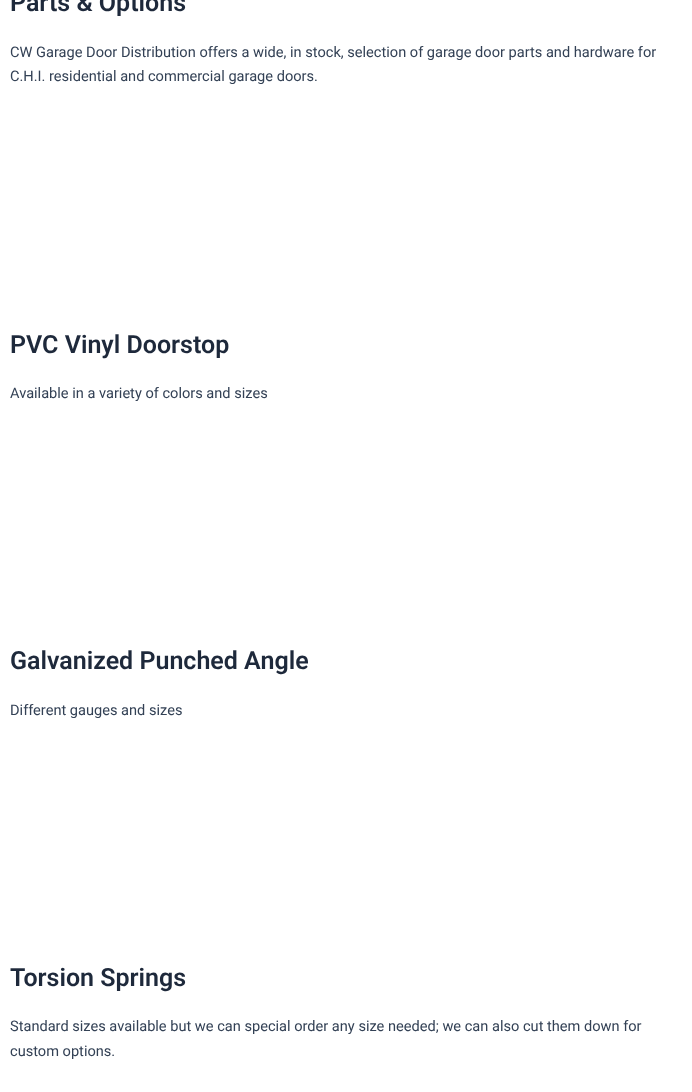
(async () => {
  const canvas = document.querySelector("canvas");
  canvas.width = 692;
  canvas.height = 1092;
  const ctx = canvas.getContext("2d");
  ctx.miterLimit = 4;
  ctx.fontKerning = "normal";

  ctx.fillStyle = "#ffffff";
  ctx.fillRect(0, 0, 692, 1092);
  ctx.font = "600 25px Roboto";
  ctx.fillStyle = "#1e293b";
  ctx.fillText("Parts & Options", 10, 11);
  ctx.font = "14.6px Roboto";
  ctx.fillStyle = "#334155";
  ctx.fillText("CW Garage Door Distribution offers a wide, in stock, selection of garage door parts and hardware for", 10, 57);
  ctx.fillText("C.H.I. residential and commercial garage doors.", 10, 81);
  ctx.font = "600 25px Roboto";
  ctx.fillStyle = "#1e293b";
  ctx.fillText("PVC Vinyl Doorstop", 10, 353);
  ctx.font = "14.6px Roboto";
  ctx.fillStyle = "#334155";
  ctx.fillText("Available in a variety of colors and sizes", 10, 398);
  ctx.font = "600 25px Roboto";
  ctx.fillStyle = "#1e293b";
  ctx.fillText("Galvanized Punched Angle", 10, 669);
  ctx.font = "14.6px Roboto";
  ctx.fillStyle = "#334155";
  ctx.fillText("Different gauges and sizes", 10, 715);
  ctx.font = "600 25px Roboto";
  ctx.fillStyle = "#1e293b";
  ctx.fillText("Torsion Springs", 10, 986);
  ctx.font = "14.6px Roboto";
  ctx.fillStyle = "#334155";
  ctx.fillText("Standard sizes available but we can special order any size needed; we can also cut them down for", 10, 1031);
  ctx.fillText("custom options.", 10, 1056);
})();
